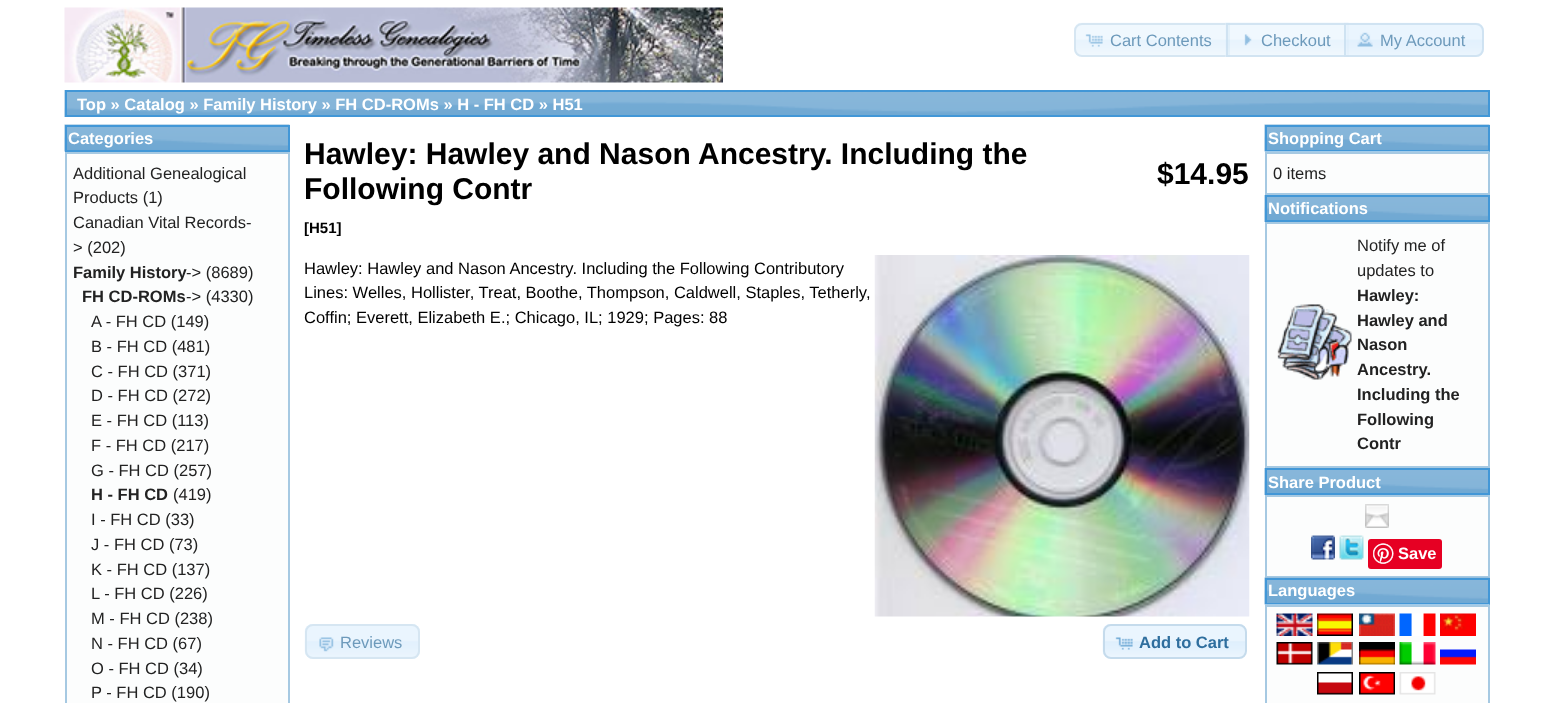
(async () => {
  const canvas = document.querySelector("canvas");
  canvas.width = 1552;
  canvas.height = 703;
  const ctx = canvas.getContext("2d");
  ctx.miterLimit = 4;
  ctx.fontKerning = "normal";
  async function loadImage(src) {
    const img = new Image();
    img.src = src;
    await img.decode();
    return img;
  }

  ctx.fillStyle = "#ffffff";
  ctx.fillRect(0, 0, 1552, 703);
  ctx.drawImage(await loadImage("img/1.png"), 64, 7, 659, 76);
  ctx.drawImage(await loadImage("img/2.png"), 1074, 22, 156, 34);
  ctx.beginPath();
  ctx.roundRect(1075, 24, 154, 32, [7, 0, 0, 7]);
  ctx.strokeStyle = "#d6e6f2";
  ctx.lineWidth = 2;
  ctx.stroke();
  ctx.drawImage(await loadImage("img/3.png"), 1085, 34, 18, 13);
  ctx.drawImage(await loadImage("img/4.png"), 1225, 22, 124, 35);
  ctx.strokeStyle = "rgba(197, 219, 236, 0.7)";
  ctx.strokeRect(1227, 24, 121, 32);
  ctx.drawImage(await loadImage("img/5.png"), 1244, 34, 8, 12);
  ctx.fillStyle = "rgba(223, 239, 252, 0.7)";
  ctx.beginPath();
  ctx.roundRect(1344, 23, 140, 34, [0, 8, 8, 0]);
  ctx.fill();
  ctx.drawImage(await loadImage("img/6.png"), 1344, 22, 139, 35);
  ctx.beginPath();
  ctx.roundRect(1345, 24, 138, 32, [0, 7, 7, 0]);
  ctx.stroke();
  ctx.drawImage(await loadImage("img/7.png"), 1357, 32, 16, 15);
  ctx.drawImage(await loadImage("img/8.png"), 64, 90, 1424, 27);
  ctx.strokeStyle = "#4297d7";
  ctx.strokeRect(66, 91, 1423, 25);
  ctx.drawImage(await loadImage("img/9.png"), 64, 124, 226, 28);
  ctx.strokeRect(66, 126, 223, 25);
  ctx.fillStyle = "#fcfdfd";
  ctx.beginPath();
  ctx.rect(66, 153, 223, 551);
  ctx.fill();
  ctx.strokeStyle = "#a6c9e2";
  ctx.stroke();
  ctx.drawImage(await loadImage("img/10.png"), 874, 255, 376, 362);
  ctx.fillStyle = "#e9f4fd";
  ctx.beginPath();
  ctx.roundRect(305, 624, 115, 35, 8);
  ctx.fill();
  ctx.drawImage(await loadImage("img/11.png"), 304, 624, 116, 32);
  ctx.beginPath();
  ctx.roundRect(306, 625, 113, 33, 7);
  ctx.strokeStyle = "#d6e6f2";
  ctx.stroke();
  ctx.drawImage(await loadImage("img/12.png"), 319, 637, 15, 15);
  ctx.drawImage(await loadImage("img/13.png"), 1102, 624, 144, 35);
  ctx.beginPath();
  ctx.roundRect(1104, 625, 142, 33, 7);
  ctx.strokeStyle = "#c5dbec";
  ctx.stroke();
  ctx.drawImage(await loadImage("img/14.png"), 1115, 637, 18, 13);
  ctx.drawImage(await loadImage("img/15.png"), 1264, 124, 226, 28);
  ctx.strokeStyle = "#4297d7";
  ctx.strokeRect(1266, 126, 223, 25);
  ctx.fillStyle = "#fcfdfd";
  ctx.beginPath();
  ctx.rect(1266, 153, 223, 41);
  ctx.fill();
  ctx.strokeStyle = "#a6c9e2";
  ctx.stroke();
  ctx.drawImage(await loadImage("img/16.png"), 1264, 151, 226, 1);
  ctx.drawImage(await loadImage("img/17.png"), 1264, 195, 224, 27);
  ctx.strokeStyle = "#4297d7";
  ctx.strokeRect(1266, 196, 223, 25);
  ctx.beginPath();
  ctx.rect(1266, 223, 223, 244);
  ctx.fill();
  ctx.strokeStyle = "#a6c9e2";
  ctx.stroke();
  ctx.drawImage(await loadImage("img/18.png"), 1277, 304, 75, 76);
  ctx.drawImage(await loadImage("img/17.png"), 1264, 468, 224, 27);
  ctx.strokeStyle = "#4297d7";
  ctx.strokeRect(1266, 469, 223, 25);
  ctx.beginPath();
  ctx.rect(1266, 496, 223, 81);
  ctx.fill();
  ctx.strokeStyle = "#a6c9e2";
  ctx.stroke();
  ctx.drawImage(await loadImage("img/19.png"), 1365, 504, 24, 24);
  ctx.drawImage(await loadImage("img/20.png"), 1311, 535, 24, 25);
  ctx.drawImage(await loadImage("img/21.png"), 1339, 535, 25, 25);
  ctx.fillStyle = "#e60023";
  ctx.beginPath();
  ctx.roundRect(1368, 539, 74, 30, 3);
  ctx.fill();
  ctx.drawImage(await loadImage("img/22.png"), 1373, 543, 21, 21);
  ctx.drawImage(await loadImage("img/23.png"), 1264, 577, 226, 28);
  ctx.strokeStyle = "#4297d7";
  ctx.strokeRect(1266, 579, 223, 25);
  ctx.fillStyle = "#fcfdfd";
  ctx.beginPath();
  ctx.rect(1266, 606, 223, 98);
  ctx.fill();
  ctx.strokeStyle = "#a6c9e2";
  ctx.stroke();
  ctx.drawImage(await loadImage("img/24.png"), 1264, 604, 226, 1);
  ctx.drawImage(await loadImage("img/25.png"), 1276, 613, 37, 23);
  ctx.drawImage(await loadImage("img/26.png"), 1317, 613, 36, 23);
  ctx.drawImage(await loadImage("img/27.png"), 1359, 613, 36, 23);
  ctx.drawImage(await loadImage("img/28.png"), 1399, 613, 37, 23);
  ctx.drawImage(await loadImage("img/29.png"), 1440, 613, 36, 23);
  ctx.drawImage(await loadImage("img/30.png"), 1276, 642, 37, 23);
  ctx.drawImage(await loadImage("img/31.png"), 1317, 642, 36, 23);
  ctx.drawImage(await loadImage("img/32.png"), 1359, 642, 36, 23);
  ctx.drawImage(await loadImage("img/33.png"), 1399, 642, 37, 23);
  ctx.drawImage(await loadImage("img/34.png"), 1440, 649, 36, 16);
  ctx.drawImage(await loadImage("img/35.png"), 1317, 672, 36, 23);
  ctx.drawImage(await loadImage("img/36.png"), 1359, 672, 36, 23);
  ctx.drawImage(await loadImage("img/37.png"), 1399, 672, 37, 23);
  ctx.font = "16.5px Liberation Sans";
  ctx.fillStyle = "#6d9abb";
  for (const [text, x, y] of [
    ["Cart Contents", 1110, 46],
    ["Checkout", 1261, 46],
    ["My Account", 1380, 46],
  ]) {
    ctx.fillText(text, x, y);
  }
  ctx.font = "bold 16.5px Liberation Sans";
  ctx.fillStyle = "#ffffff";
  ctx.fillText("Top » Catalog » Family History » FH CD-ROMs » H - FH CD » H51", 77, 110);
  ctx.fillText("Categories", 68, 144);
  ctx.font = "16.5px Liberation Sans";
  ctx.fillStyle = "#222222";
  for (const [text, x, y] of [
    ["Additional Genealogical", 73, 179],
    ["Products (1)", 73, 203],
    ["Canadian Vital Records-", 73, 228],
    ["> (202)", 73, 253],
  ]) {
    ctx.fillText(text, x, y);
  }
  ctx.font = "bold 16.5px Liberation Sans";
  ctx.fillText("Family History", 73, 278);
  ctx.font = "16.5px Liberation Sans";
  ctx.fillText("-> (8689)", 186, 278);
  ctx.font = "bold 16.5px Liberation Sans";
  ctx.fillText("FH CD-ROMs", 82, 302);
  ctx.font = "16.5px Liberation Sans";
  for (const [text, x, y] of [
    ["-> (4330)", 186, 302],
    ["A - FH CD (149)", 91, 327],
    ["B - FH CD (481)", 91, 352],
    ["C - FH CD (371)", 91, 377],
    ["D - FH CD (272)", 91, 401],
    ["E - FH CD (113)", 91, 426],
    ["F - FH CD (217)", 91, 451],
    ["G - FH CD (257)", 91, 476],
  ]) {
    ctx.fillText(text, x, y);
  }
  ctx.font = "bold 16.5px Liberation Sans";
  ctx.fillText("H - FH CD", 91, 500);
  ctx.font = "16.5px Liberation Sans";
  for (const [text, x, y] of [
    ["(419)", 173, 500],
    ["I - FH CD (33)", 91, 525],
    ["J - FH CD (73)", 91, 550],
    ["K - FH CD (137)", 91, 575],
    ["L - FH CD (226)", 91, 599],
    ["M - FH CD (238)", 91, 624],
    ["N - FH CD (67)", 91, 649],
    ["O - FH CD (34)", 91, 674],
    ["P - FH CD (190)", 91, 698],
  ]) {
    ctx.fillText(text, x, y);
  }
  ctx.font = "bold 30px Liberation Sans";
  ctx.fillStyle = "#000000";
  ctx.fillText("Hawley: Hawley and Nason Ancestry. Including the", 304, 164);
  ctx.fillText("Following Contr", 304, 199);
  ctx.font = "bold 15px Liberation Sans";
  ctx.fillText("[H51]", 304, 233);
  ctx.font = "bold 30px Liberation Sans";
  ctx.fillText("$14.95", 1157, 184);
  ctx.font = "16.5px Liberation Sans";
  for (const [text, x, y] of [
    ["Hawley: Hawley and Nason Ancestry. Including the Following Contributory", 304, 274],
    ["Lines: Welles, Hollister, Treat, Boothe, Thompson, Caldwell, Staples, Tetherly,", 304, 298],
    ["Coffin; Everett, Elizabeth E.; Chicago, IL; 1929; Pages: 88", 304, 323],
  ]) {
    ctx.fillText(text, x, y);
  }
  ctx.fillStyle = "#6d9abb";
  ctx.fillText("Reviews", 340, 648);
  ctx.font = "bold 16.5px Liberation Sans";
  ctx.fillStyle = "#2e6e9e";
  ctx.fillText("Add to Cart", 1139, 648);
  ctx.fillStyle = "#ffffff";
  ctx.fillText("Shopping Cart", 1268, 144);
  ctx.font = "16.5px Liberation Sans";
  ctx.fillStyle = "#222222";
  ctx.fillText("0 items", 1273, 179);
  ctx.font = "bold 16.5px Liberation Sans";
  ctx.fillStyle = "#ffffff";
  ctx.fillText("Notifications", 1268, 214);
  ctx.font = "16.5px Liberation Sans";
  ctx.fillStyle = "#222222";
  ctx.fillText("Notify me of", 1357, 251);
  ctx.fillText("updates to", 1357, 276);
  ctx.font = "bold 16.5px Liberation Sans";
  for (const [text, x, y] of [
    ["Hawley:", 1357, 301],
    ["Hawley and", 1357, 326],
    ["Nason", 1357, 350],
    ["Ancestry.", 1357, 375],
    ["Including the", 1357, 400],
    ["Following", 1357, 425],
    ["Contr", 1357, 449],
  ]) {
    ctx.fillText(text, x, y);
  }
  ctx.fillStyle = "#ffffff";
  for (const [text, x, y] of [
    ["Share Product", 1268, 488],
    ["Save", 1398, 559],
    ["Languages", 1268, 596],
  ]) {
    ctx.fillText(text, x, y);
  }
})();
